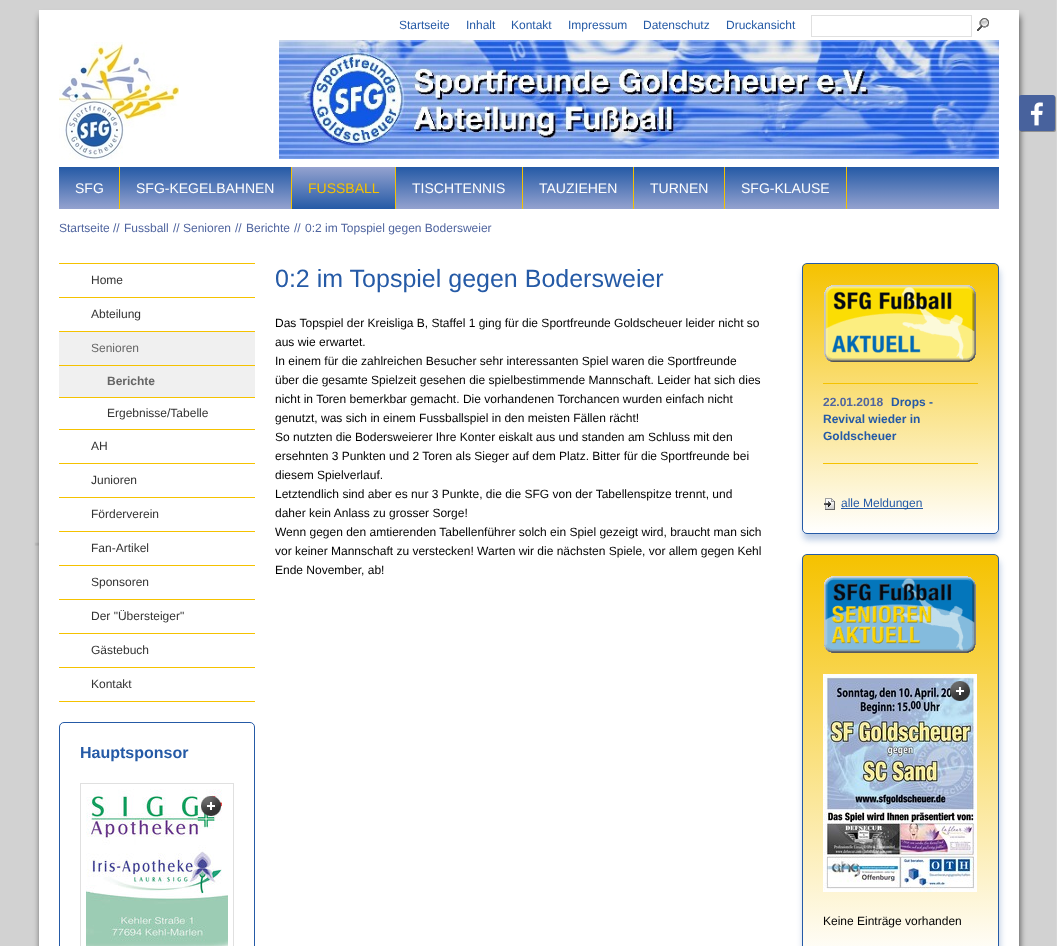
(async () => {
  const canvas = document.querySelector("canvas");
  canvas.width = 1057;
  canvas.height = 946;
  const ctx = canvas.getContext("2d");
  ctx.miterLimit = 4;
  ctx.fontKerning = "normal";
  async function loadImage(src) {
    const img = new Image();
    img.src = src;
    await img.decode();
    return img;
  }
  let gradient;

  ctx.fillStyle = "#ffffff";
  ctx.fillRect(0, 0, 1057, 946);
  ctx.drawImage(await loadImage("img/1.png"), 0, 0, 1057, 946);
  ctx.fillStyle = "rgba(0, 0, 0, 0.6)";
  ctx.filter = "blur(3px)";
  ctx.beginPath();
  ctx.rect(40, 16, 980, 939);
  ctx.fill();
  ctx.filter = "none";
  ctx.fillStyle = "#ffffff";
  ctx.fillRect(39, 10, 980, 936);
  ctx.strokeStyle = "#e0e0e0";
  ctx.strokeRect(811.5, 15.5, 160, 21);
  ctx.drawImage(await loadImage("img/2.png"), 977, 18, 12, 13);
  ctx.drawImage(await loadImage("img/3.png"), 59, 42, 120, 118);
  ctx.drawImage(await loadImage("img/4.png"), 279, 40, 720, 119);
  gradient = ctx.createLinearGradient(529, 167, 529, 209);
  gradient.addColorStop(0, "#255aa6");
  gradient.addColorStop(1, "#94a2cf");
  ctx.fillStyle = gradient;
  ctx.fillRect(59, 167, 940, 42);
  for (const [x, y, w, h, color] of [
    [119, 167, 1, 42, "#f5c200"],
    [291, 167, 1, 42, "#f5c200"],
    [395, 167, 1, 42, "#f5c200"],
  ]) {
    ctx.fillStyle = color;
    ctx.fillRect(x, y, w, h);
  }
  gradient = ctx.createLinearGradient(344, 209, 344, 167);
  gradient.addColorStop(0, "#255aa6");
  gradient.addColorStop(1, "#94a2cf");
  ctx.fillStyle = gradient;
  ctx.fillRect(292, 167, 103, 42);
  for (const [x, y, w, h, color] of [
    [522, 167, 1, 42, "#f5c200"],
    [633, 167, 1, 42, "#f5c200"],
    [724, 167, 1, 42, "#f5c200"],
    [846, 167, 1, 42, "#f5c200"],
    [59, 263, 196, 1, "#f5c200"],
    [59, 297, 196, 1, "#f5c200"],
    [59, 331, 196, 1, "#f5c200"],
    [59, 332, 196, 33, "#f0f0f0"],
    [59, 365, 196, 1, "#f5c200"],
    [59, 366, 196, 31, "#f0f0f0"],
    [59, 397, 196, 1, "#f5c200"],
    [59, 429, 196, 1, "#f5c200"],
    [59, 463, 196, 1, "#f5c200"],
    [59, 497, 196, 1, "#f5c200"],
    [59, 531, 196, 1, "#f5c200"],
    [59, 565, 196, 1, "#f5c200"],
    [59, 599, 196, 1, "#f5c200"],
    [59, 633, 196, 1, "#f5c200"],
    [59, 667, 196, 1, "#f5c200"],
    [59, 701, 196, 1, "#f5c200"],
  ]) {
    ctx.fillStyle = color;
    ctx.fillRect(x, y, w, h);
  }
  ctx.beginPath();
  ctx.roundRect(59.5, 722.5, 195, 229, 4.5);
  ctx.strokeStyle = "#255aa6";
  ctx.stroke();
  ctx.strokeStyle = "#e0e0e0";
  ctx.strokeRect(80.5, 783.5, 153, 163);
  ctx.drawImage(await loadImage("img/5.png"), 86, 789, 142, 157);
  ctx.drawImage(await loadImage("img/6.png"), 201, 796, 20, 20);
  ctx.fillStyle = "rgba(37, 90, 166, 0.3)";
  ctx.filter = "blur(3px)";
  ctx.beginPath();
  ctx.roundRect(803, 269, 197, 271, 5);
  ctx.fill();
  ctx.filter = "none";
  ctx.save();
  ctx.beginPath();
  ctx.roundRect(802, 263, 197, 271, 5);
  ctx.clip();
  gradient = ctx.createLinearGradient(901, 264, 901, 533);
  gradient.addColorStop(0, "#f5c200");
  gradient.addColorStop(1, "#ffffff");
  ctx.fillStyle = gradient;
  ctx.fillRect(802, 264, 197, 269);
  ctx.restore();
  ctx.beginPath();
  ctx.roundRect(802.5, 263.5, 196, 270, 4.5);
  ctx.strokeStyle = "#255aa6";
  ctx.stroke();
  ctx.drawImage(await loadImage("img/7.png"), 824, 285, 152, 77);
  ctx.fillStyle = "#f5c200";
  ctx.fillRect(823, 383, 155, 1);
  ctx.fillRect(823, 463, 155, 1);
  ctx.drawImage(await loadImage("img/8.png"), 824, 498, 11, 12);
  ctx.fillStyle = "#255aa6";
  ctx.fillRect(841, 508, 82, 1);
  ctx.fillStyle = "rgba(37, 90, 166, 0.3)";
  ctx.filter = "blur(3px)";
  ctx.beginPath();
  ctx.roundRect(803, 560, 197, 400, 5);
  ctx.fill();
  ctx.filter = "none";
  ctx.save();
  ctx.beginPath();
  ctx.roundRect(802, 554, 197, 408, 5);
  ctx.clip();
  gradient = ctx.createLinearGradient(901, 555, 901, 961);
  gradient.addColorStop(0, "#f5c200");
  gradient.addColorStop(1, "#ffffff");
  ctx.fillStyle = gradient;
  ctx.fillRect(802, 555, 197, 391);
  ctx.restore();
  ctx.beginPath();
  ctx.roundRect(802.5, 554.5, 196, 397, 4.5);
  ctx.stroke();
  ctx.drawImage(await loadImage("img/9.png"), 824, 576, 152, 77);
  ctx.drawImage(await loadImage("img/10.png"), 823, 674, 154, 218);
  ctx.drawImage(await loadImage("img/11.png"), 950, 681, 20, 20);
  ctx.fillStyle = "rgba(0, 0, 0, 0.3)";
  ctx.filter = "blur(0.5px)";
  ctx.beginPath();
  ctx.roundRect(1020, 96, 36, 36, 2);
  ctx.fill();
  ctx.filter = "none";
  ctx.fillStyle = "#48629d";
  ctx.beginPath();
  ctx.roundRect(1019, 95, 36, 36, 2);
  ctx.fill();
  ctx.drawImage(await loadImage("img/12.png"), 1030, 102, 13, 24);
  ctx.font = "12px Liberation Sans";
  ctx.fillStyle = "#255aa6";
  for (const [text, x, y] of [
    ["Startseite", 399, 29],
    ["Inhalt", 466, 29],
    ["Kontakt", 511, 29],
    ["Impressum", 568, 29],
    ["Datenschutz", 643, 29],
    ["Druckansicht", 726, 29],
  ]) {
    ctx.fillText(text, x, y);
  }
  ctx.font = "14px Liberation Sans";
  ctx.fillStyle = "#ffffff";
  ctx.fillText("SFG", 75, 193);
  ctx.fillText("SFG-KEGELBAHNEN", 136, 193);
  ctx.fillStyle = "#f5c200";
  ctx.fillText("FUSSBALL", 308, 193);
  ctx.fillStyle = "#ffffff";
  for (const [text, x, y] of [
    ["TISCHTENNIS", 412, 193],
    ["TAUZIEHEN", 539, 193],
    ["TURNEN", 650, 193],
    ["SFG-KLAUSE", 741, 193],
  ]) {
    ctx.fillText(text, x, y);
  }
  ctx.font = "12px Liberation Sans";
  ctx.fillStyle = "#50659f";
  for (const [text, x, y] of [
    ["Startseite", 59, 232],
    ["//", 113, 232],
    ["Fussball", 124, 232],
    ["//", 173, 232],
    ["Senioren", 183, 232],
    ["//", 235, 232],
    ["Berichte", 246, 232],
    ["//", 294, 232],
    ["0:2 im Topspiel gegen Bodersweier", 305, 232],
  ]) {
    ctx.fillText(text, x, y);
  }
  ctx.fillStyle = "#333333";
  ctx.fillText("Home", 91, 284);
  ctx.fillText("Abteilung", 91, 318);
  ctx.fillStyle = "#666666";
  ctx.fillText("Senioren", 91, 352);
  ctx.font = "bold 12px Liberation Sans";
  ctx.fillText("Berichte", 107, 385);
  ctx.font = "12px Liberation Sans";
  ctx.fillStyle = "#333333";
  for (const [text, x, y] of [
    ["Ergebnisse/Tabelle", 107, 417],
    ["AH", 91, 450],
    ["Junioren", 91, 484],
    ["Förderverein", 91, 518],
    ["Fan-Artikel", 91, 552],
    ["Sponsoren", 91, 586],
    ["Der \"Übersteiger\"", 91, 620],
    ["Gästebuch", 91, 654],
    ["Kontakt", 91, 688],
  ]) {
    ctx.fillText(text, x, y);
  }
  ctx.font = "bold 16px Liberation Sans";
  ctx.fillStyle = "#255aa6";
  ctx.fillText("Hauptsponsor", 80, 758);
  ctx.font = "25px Liberation Sans";
  ctx.fillText("0:2 im Topspiel gegen Bodersweier", 275, 287);
  ctx.font = "12px Liberation Sans";
  ctx.fillStyle = "#000000";
  for (const [text, x, y] of [
    ["Das Topspiel der Kreisliga B, Staffel 1 ging für die Sportfreunde Goldscheuer leider nicht so", 275, 327],
    ["aus wie erwartet.", 275, 346],
    ["In einem für die zahlreichen Besucher sehr interessanten Spiel waren die Sportfreunde", 275, 365],
    ["über die gesamte Spielzeit gesehen die spielbestimmende Mannschaft. Leider hat sich dies", 275, 384],
    ["nicht in Toren bemerkbar gemacht. Die vorhandenen Torchancen wurden einfach nicht", 275, 403],
    ["genutzt, was sich in einem Fussballspiel in den meisten Fällen rächt!", 275, 422],
    ["So nutzten die Bodersweierer Ihre Konter eiskalt aus und standen am Schluss mit den", 275, 441],
    ["ersehnten 3 Punkten und 2 Toren als Sieger auf dem Platz. Bitter für die Sportfreunde bei", 275, 460],
    ["diesem Spielverlauf.", 275, 479],
    ["Letztendlich sind aber es nur 3 Punkte, die die SFG von der Tabellenspitze trennt, und", 275, 498],
    ["daher kein Anlass zu grosser Sorge!", 275, 517],
    ["Wenn gegen den amtierenden Tabellenführer solch ein Spiel gezeigt wird, braucht man sich", 275, 536],
    ["vor keiner Mannschaft zu verstecken! Warten wir die nächsten Spiele, vor allem gegen Kehl", 275, 555],
    ["Ende November, ab!", 275, 574],
  ]) {
    ctx.fillText(text, x, y);
  }
  ctx.font = "bold 12px Liberation Sans";
  ctx.fillStyle = "#50659f";
  ctx.fillText("22.01.2018", 823, 406);
  ctx.fillStyle = "#255aa6";
  for (const [text, x, y] of [
    ["Drops -", 891, 406],
    ["Revival wieder in", 823, 423],
    ["Goldscheuer", 823, 440],
  ]) {
    ctx.fillText(text, x, y);
  }
  ctx.font = "12px Liberation Sans";
  ctx.fillText("alle Meldungen", 841, 507);
  ctx.fillStyle = "#000000";
  ctx.fillText("Keine Einträge vorhanden", 823, 925);
})();
